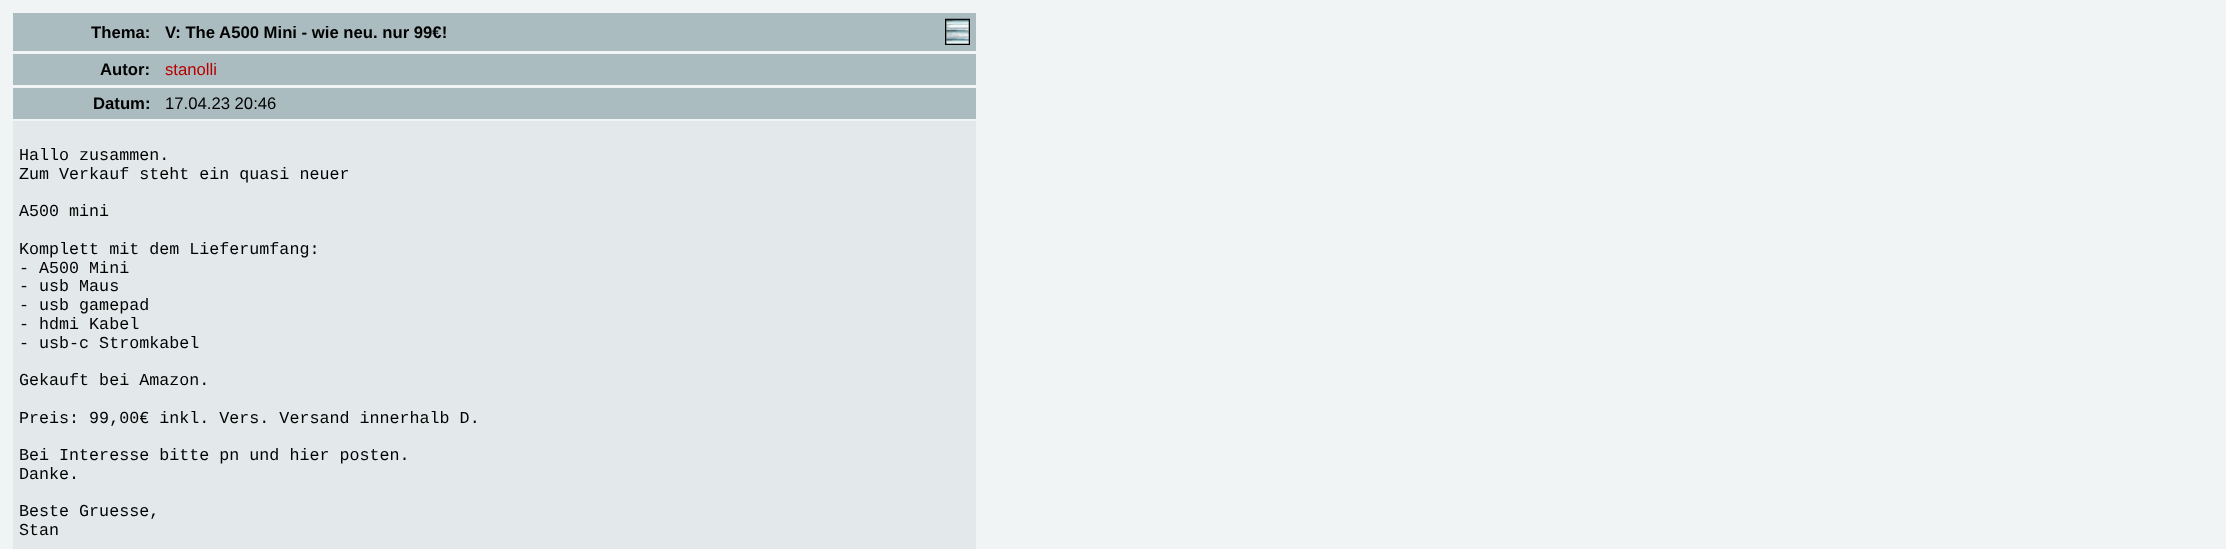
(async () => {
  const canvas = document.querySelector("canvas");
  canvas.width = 2226;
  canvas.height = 549;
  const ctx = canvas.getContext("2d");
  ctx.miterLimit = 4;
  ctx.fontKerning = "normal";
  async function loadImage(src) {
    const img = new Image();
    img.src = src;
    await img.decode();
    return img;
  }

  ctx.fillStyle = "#f1f4f5";
  ctx.fillRect(0, 0, 2226, 549);
  ctx.fillStyle = "#abbcc0";
  ctx.fillRect(13, 13, 963, 38);
  ctx.drawImage(await loadImage("img/1.png"), 945, 18, 25, 27);
  for (const [x, y, w, h, color] of [
    [13, 54, 963, 31, "#abbcc0"],
    [13, 88, 963, 31, "#abbcc0"],
    [13, 121, 963, 428, "#e3e9ea"],
  ]) {
    ctx.fillStyle = color;
    ctx.fillRect(x, y, w, h);
  }
  ctx.font = "bold 16.7px Liberation Sans";
  ctx.fillStyle = "#000000";
  for (const [text, x, y] of [
    ["Thema:", 91, 38],
    ["V: The A500 Mini - wie neu. nur 99€!", 165, 38],
    ["Autor:", 100, 75],
  ]) {
    ctx.fillText(text, x, y);
  }
  ctx.font = "16.7px Liberation Sans";
  ctx.fillStyle = "#b70000";
  ctx.fillText("stanolli", 165, 75);
  ctx.font = "bold 16.7px Liberation Sans";
  ctx.fillStyle = "#000000";
  ctx.fillText("Datum:", 93, 109);
  ctx.font = "16.7px Liberation Sans";
  ctx.fillText("17.04.23 20:46", 165, 109);
  ctx.font = "16.7px Liberation Mono";
  for (const [text, x, y] of [
    ["Hallo zusammen.", 19, 160],
    ["Zum Verkauf steht ein quasi neuer", 19, 179],
    ["A500 mini", 19, 216],
    ["Komplett mit dem Lieferumfang:", 19, 254],
    ["- A500 Mini", 19, 273],
    ["- usb Maus", 19, 291],
    ["- usb gamepad", 19, 310],
    ["- hdmi Kabel", 19, 329],
    ["- usb-c Stromkabel", 19, 348],
    ["Gekauft bei Amazon.", 19, 385],
    ["Preis: 99,00€ inkl. Vers. Versand innerhalb D.", 19, 423],
    ["Bei Interesse bitte pn und hier posten.", 19, 460],
    ["Danke.", 19, 479],
    ["Beste Gruesse,", 19, 516],
    ["Stan", 19, 535],
  ]) {
    ctx.fillText(text, x, y);
  }
})();
